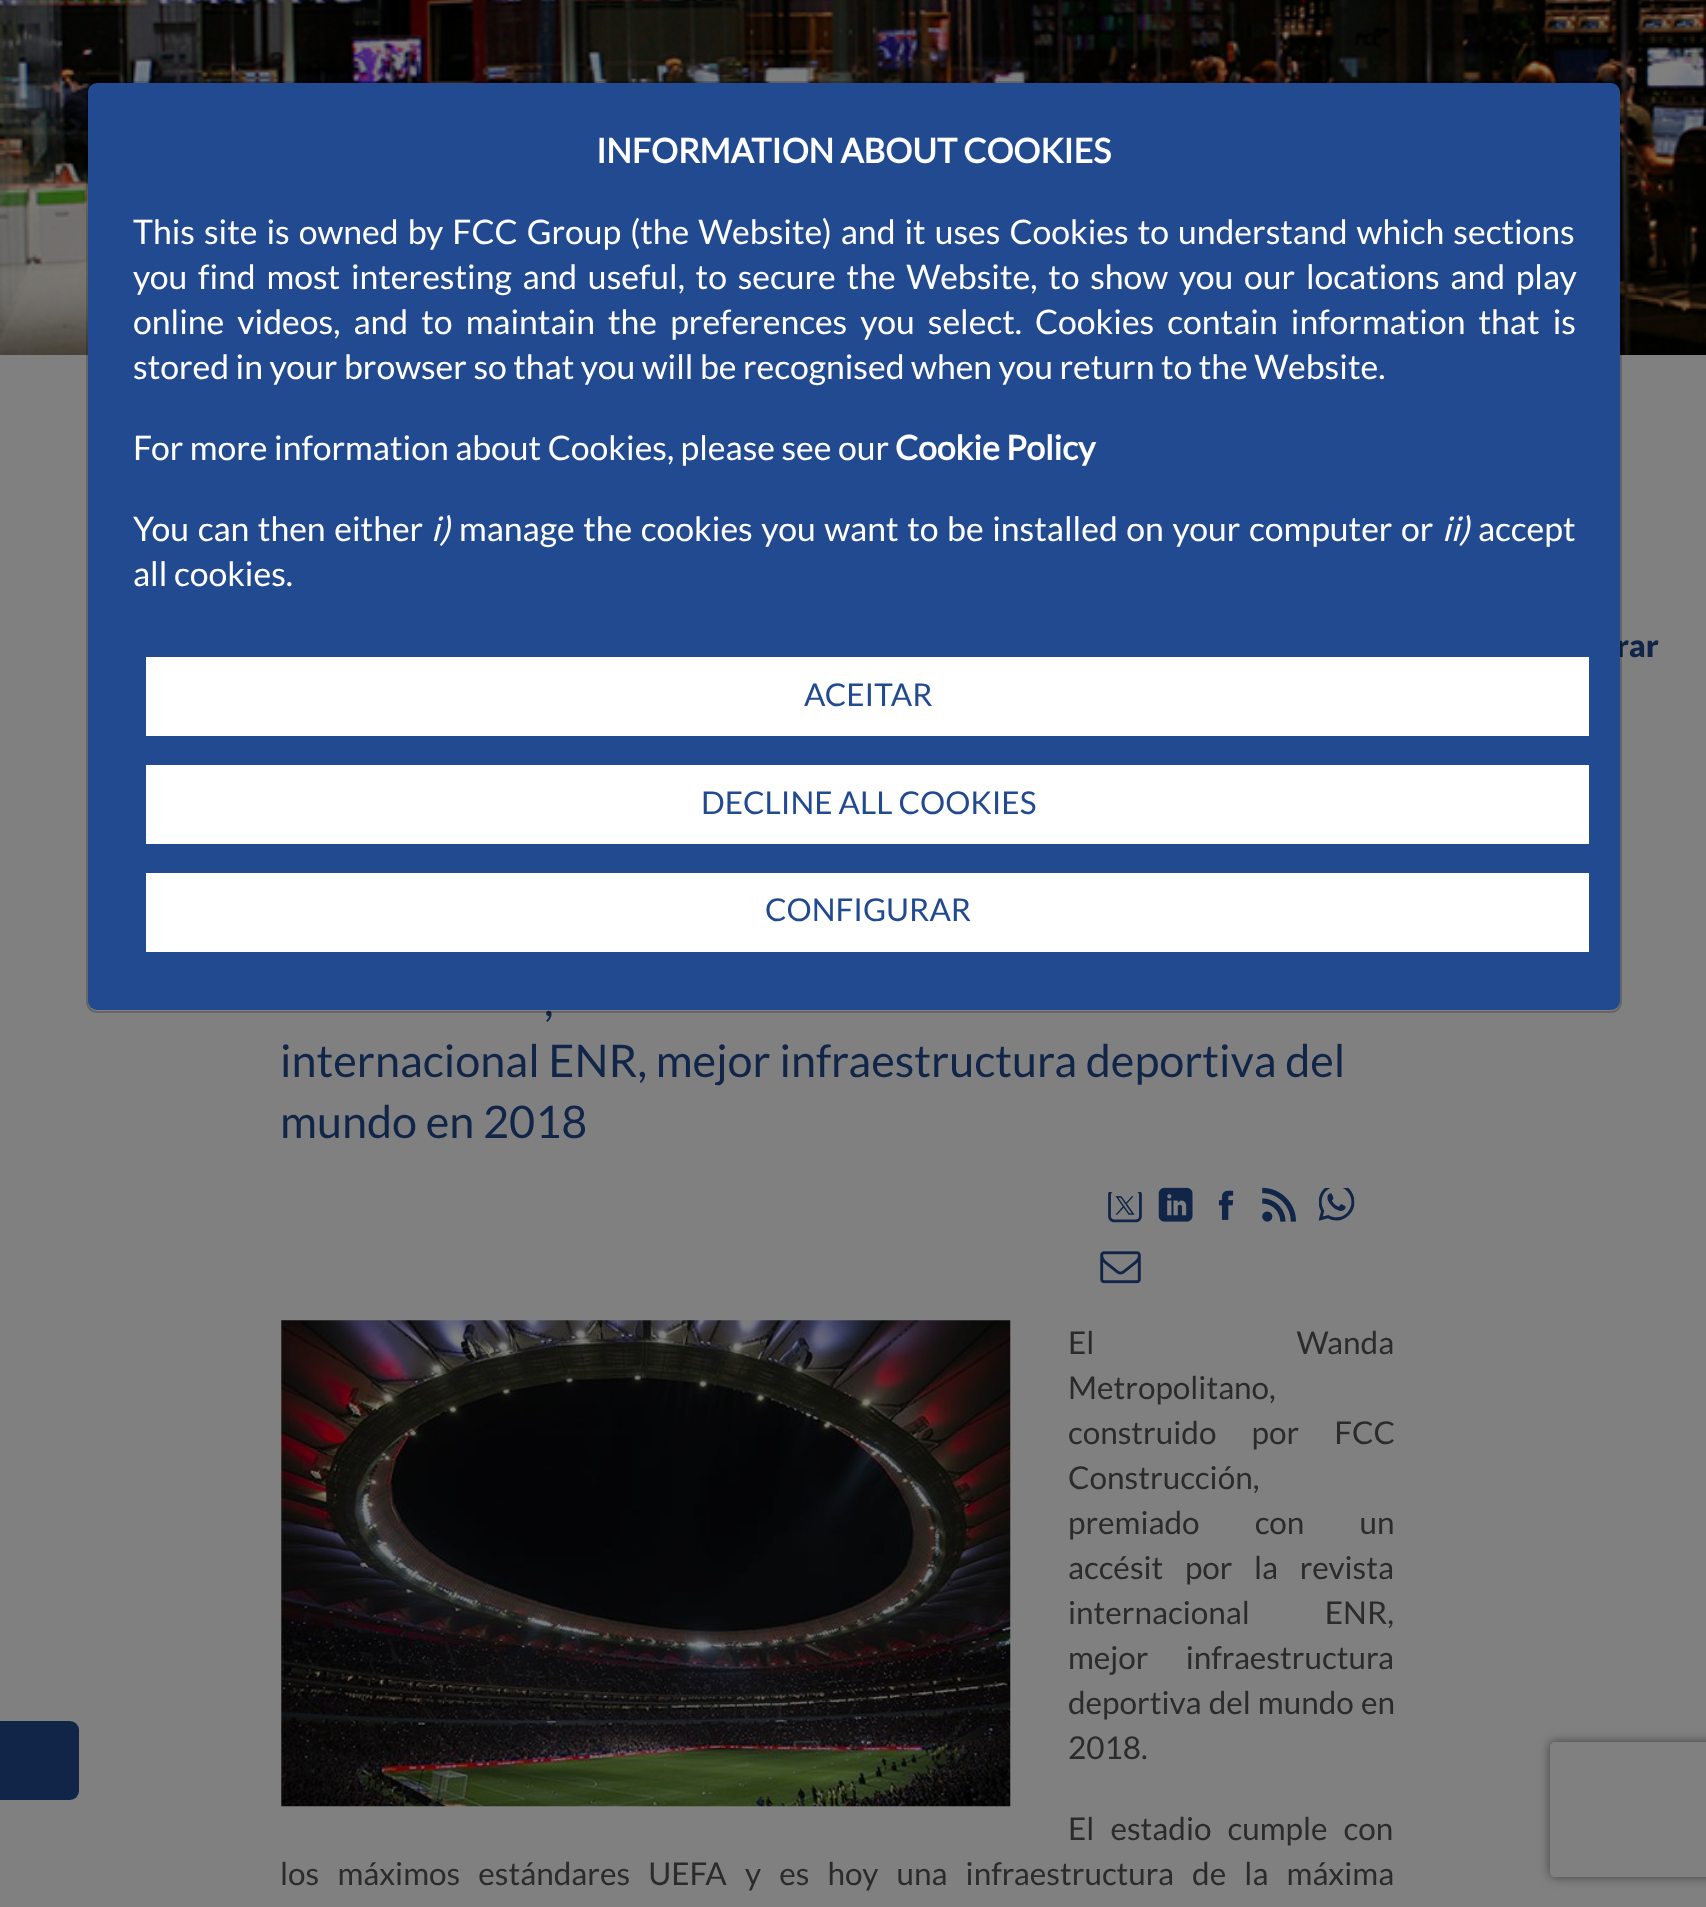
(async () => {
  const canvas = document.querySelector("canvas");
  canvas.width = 1706;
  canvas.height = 1907;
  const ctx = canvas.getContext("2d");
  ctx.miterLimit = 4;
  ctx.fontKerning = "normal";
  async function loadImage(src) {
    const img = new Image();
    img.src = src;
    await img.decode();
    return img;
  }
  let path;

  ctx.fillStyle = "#808080";
  ctx.fillRect(0, 0, 1706, 1907);
  ctx.fillStyle = "#112549";
  ctx.beginPath();
  ctx.roundRect(0, 1721, 79, 79, [0, 9, 9, 0]);
  ctx.fill();
  ctx.drawImage(await loadImage("img/1.png"), 0, 0, 1706, 355);
  ctx.drawImage(await loadImage("img/2.png"), 1108, 1192, 34, 31);
  ctx.drawImage(await loadImage("img/3.png"), 1158, 1187, 35, 35);
  ctx.drawImage(await loadImage("img/4.png"), 1218, 1190, 16, 30);
  ctx.drawImage(await loadImage("img/5.png"), 1262, 1187, 34, 35);
  ctx.drawImage(await loadImage("img/6.png"), 1319, 1188, 36, 33);
  ctx.drawImage(await loadImage("img/7.png"), 1100, 1251, 41, 33);
  ctx.drawImage(await loadImage("img/8.png"), 281, 1320, 730, 487);
  ctx.save();
  path = new Path2D("M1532 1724H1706V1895H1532ZM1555 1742H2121C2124 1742 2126 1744 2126 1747V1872C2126 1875 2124 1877 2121 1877H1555C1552 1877 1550 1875 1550 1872V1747C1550 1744 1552 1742 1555 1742Z");
  ctx.clip(path, "evenodd");
  ctx.fillStyle = "#404040";
  ctx.filter = "blur(5.5px)";
  ctx.beginPath();
  ctx.roundRect(1550, 1742, 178, 135, 5);
  ctx.fill();
  ctx.filter = "none";
  ctx.restore();
  ctx.font = "900 31.5px Lato";
  ctx.fillText("rar", 1616, 657);
  ctx.fillStyle = "#224a91";
  ctx.beginPath();
  ctx.roundRect(88, 83, 1532, 927, 9);
  ctx.fill();
  ctx.font = "45px Lato";
  ctx.fillStyle = "#112549";
  ctx.fillText(",", 544, 1016);
  ctx.beginPath();
  ctx.roundRect(87, 82, 1534, 930, 10);
  ctx.strokeStyle = "rgba(0, 0, 0, 0.2)";
  ctx.lineWidth = 2;
  ctx.stroke();
  ctx.fillStyle = "#ffffff";
  ctx.beginPath();
  ctx.rect(147, 874, 1441, 77);
  ctx.fill();
  ctx.strokeStyle = "#ffffff";
  ctx.stroke();
  ctx.font = "31.5px Lato";
  ctx.fillStyle = "#224a91";
  ctx.fillText("CONFIGURAR", 765, 921);
  ctx.fillStyle = "#ffffff";
  ctx.beginPath();
  ctx.rect(147, 766, 1441, 77);
  ctx.fill();
  ctx.stroke();
  ctx.fillStyle = "#224a91";
  ctx.fillText("DECLINE ALL COOKIES", 701, 814);
  ctx.fillStyle = "#ffffff";
  ctx.beginPath();
  ctx.rect(147, 658, 1441, 77);
  ctx.fill();
  ctx.stroke();
  ctx.fillStyle = "#224a91";
  ctx.fillText("ACEITAR", 804, 706);
  ctx.font = "33.75px Lato";
  ctx.fillStyle = "#ffffff";
  ctx.fillText("all cookies.", 133, 586);
  ctx.fillText("accept", 1478, 541);
  ctx.font = "italic 33.75px Lato";
  ctx.fillText("ii)", 1442, 541);
  ctx.wordSpacing = "2.1px";
  ctx.font = "33.75px Lato";
  ctx.fillText("manage the cookies you want to be installed on your computer or", 459, 541);
  ctx.wordSpacing = "0px";
  ctx.font = "italic 33.75px Lato";
  ctx.fillText("i)", 431, 541);
  ctx.wordSpacing = "2.1px";
  ctx.font = "33.75px Lato";
  ctx.fillText("You can then either", 133, 541);
  ctx.wordSpacing = "0px";
  ctx.font = "bold 33.75px Lato";
  ctx.fillText("Cookie Policy", 895, 460);
  ctx.font = "33.75px Lato";
  ctx.fillText("For more information about Cookies, please see our", 133, 460);
  ctx.fillText("stored in your browser so that you will be recognised when you return to the Website.", 133, 379);
  ctx.wordSpacing = "6.6px";
  ctx.fillText("online videos, and to maintain the preferences you select. Cookies contain information that is", 133, 334);
  ctx.wordSpacing = "4.25px";
  ctx.fillText("you find most interesting and useful, to secure the Website, to show you our locations and play", 133, 289);
  ctx.wordSpacing = "2.5px";
  ctx.fillText("This site is owned by FCC Group (the Website) and it uses Cookies to understand which sections", 133, 244);
  ctx.wordSpacing = "0px";
  ctx.font = "bold 33.75px Lato";
  ctx.fillText("INFORMATION ABOUT COOKIES", 596, 163);
  ctx.font = "45px Lato";
  ctx.fillStyle = "#112549";
  ctx.fillText("internacional ENR, mejor infraestructura deportiva del", 280, 1077);
  ctx.fillText("mundo en 2018", 280, 1138);
  ctx.wordSpacing = "196px";
  ctx.font = "31.5px Lato";
  ctx.fillStyle = "#2b2b2b";
  ctx.fillText("El Wanda", 1068, 1354);
  ctx.wordSpacing = "0px";
  ctx.fillText("Metropolitano,", 1068, 1399);
  ctx.wordSpacing = "29px";
  ctx.fillText("construido por FCC", 1068, 1444);
  ctx.wordSpacing = "0px";
  ctx.fillText("Construcción,", 1068, 1489);
  ctx.wordSpacing = "49px";
  ctx.fillText("premiado con un", 1068, 1534);
  ctx.wordSpacing = "15.5px";
  ctx.fillText("accésit por la revista", 1068, 1579);
  ctx.wordSpacing = "69px";
  ctx.fillText("internacional ENR,", 1068, 1624);
  ctx.wordSpacing = "31px";
  ctx.fillText("mejor infraestructura", 1068, 1669);
  ctx.wordSpacing = "1px";
  ctx.fillText("deportiva del mundo en", 1068, 1714);
  ctx.wordSpacing = "0px";
  ctx.fillText("2018.", 1068, 1759);
  ctx.wordSpacing = "10px";
  ctx.fillText("El estadio cumple con", 1068, 1840);
  ctx.wordSpacing = "12.1px";
  ctx.fillText("los máximos estándares UEFA y es hoy una infraestructura de la máxima", 280, 1885);
})();
